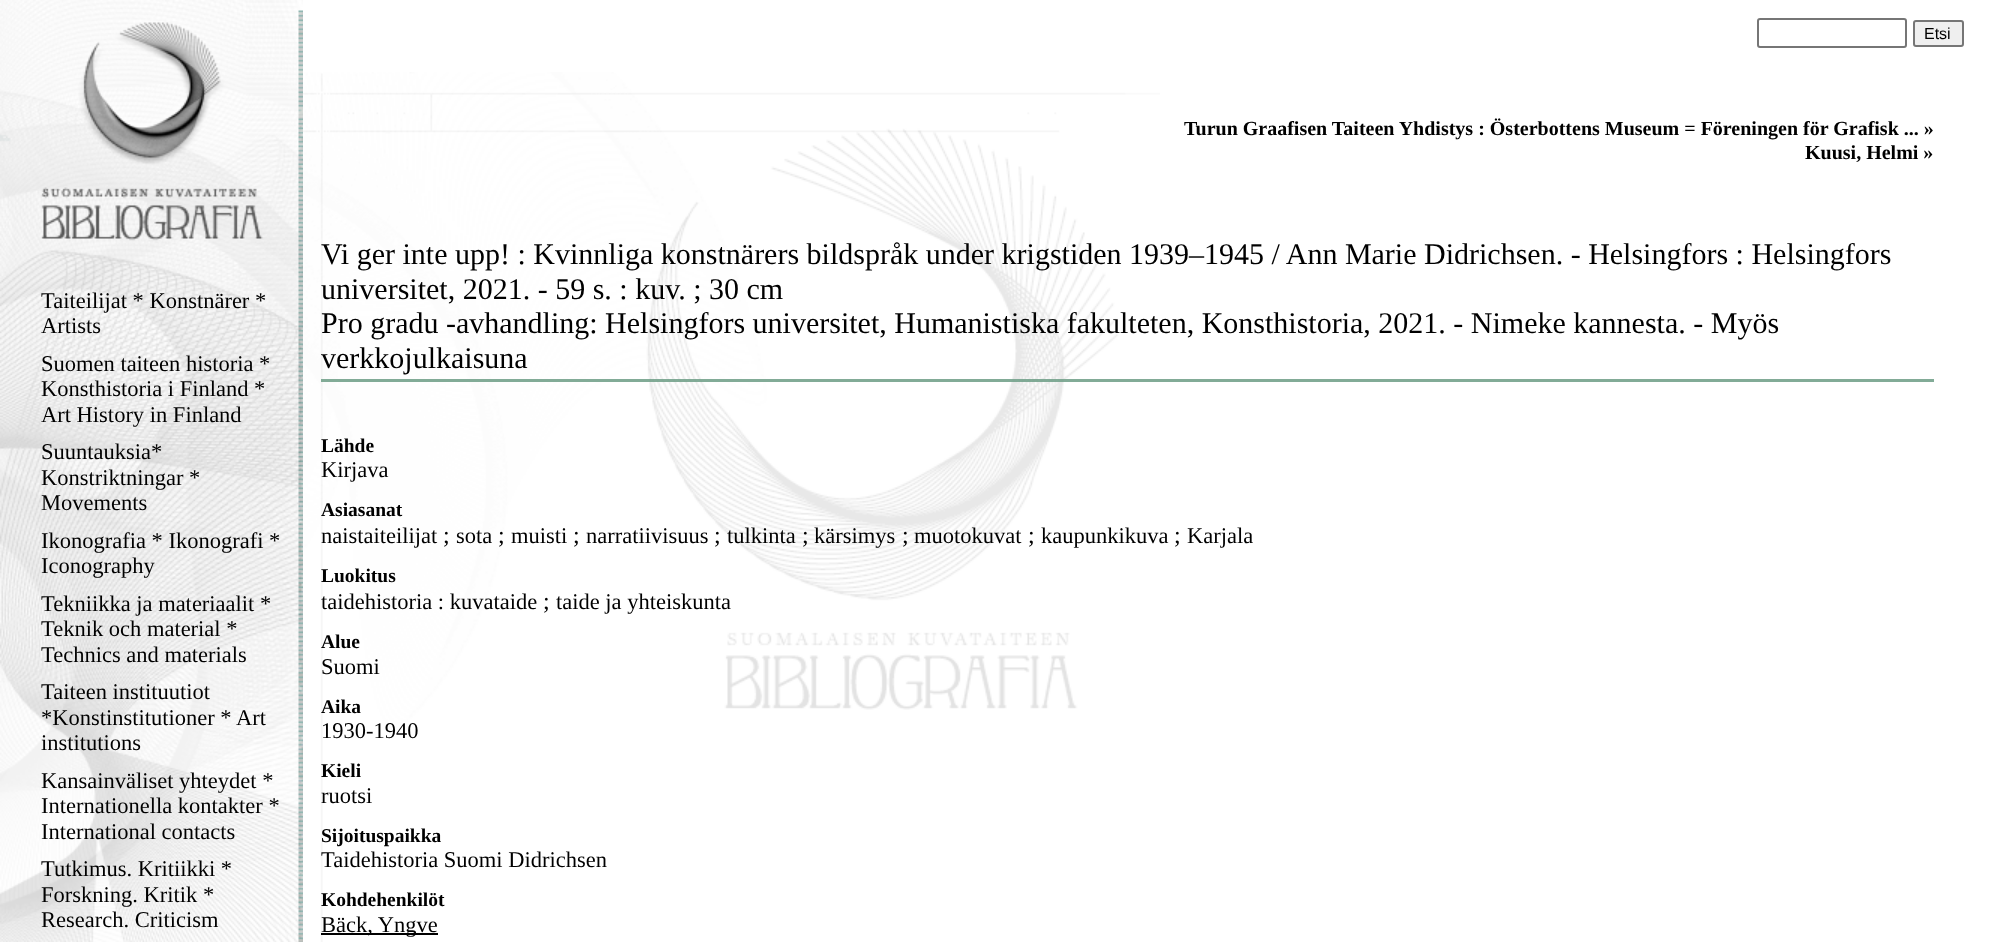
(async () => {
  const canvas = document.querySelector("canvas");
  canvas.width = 1993;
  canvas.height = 942;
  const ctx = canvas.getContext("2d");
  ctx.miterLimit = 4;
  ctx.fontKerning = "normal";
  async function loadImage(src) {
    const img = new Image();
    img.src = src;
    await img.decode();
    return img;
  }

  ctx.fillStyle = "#ffffff";
  ctx.fillRect(0, 0, 1993, 942);
  ctx.drawImage(await loadImage("img/1.png"), 0, 0, 303, 942);
  ctx.beginPath();
  ctx.roundRect(1758, 19, 148, 28, 2);
  ctx.strokeStyle = "#767676";
  ctx.lineWidth = 2;
  ctx.stroke();
  ctx.fillStyle = "#efefef";
  ctx.beginPath();
  ctx.roundRect(1914, 21, 49, 25, 2);
  ctx.fill();
  ctx.stroke();
  ctx.drawImage(await loadImage("img/2.png"), 303, 72, 857, 870);
  ctx.fillStyle = "rgba(111, 158, 136, 0.87)";
  ctx.fillRect(321, 379, 1613, 3);
  ctx.fillStyle = "#000000";
  ctx.fillRect(321, 933, 117, 2);
  ctx.font = "22.5px Liberation Serif";
  for (const [text, x, y] of [
    ["Taiteilijat * Konstnärer *", 41, 308],
    ["Artists", 41, 333],
    ["Suomen taiteen historia *", 41, 371],
    ["Konsthistoria i Finland *", 41, 396],
    ["Art History in Finland", 41, 422],
    ["Suuntauksia*", 41, 459],
    ["Konstriktningar *", 41, 485],
    ["Movements", 41, 510],
    ["Ikonografia * Ikonografi *", 41, 548],
    ["Iconography", 41, 573],
    ["Tekniikka ja materiaalit *", 41, 611],
    ["Teknik och material *", 41, 636],
    ["Technics and materials", 41, 662],
    ["Taiteen instituutiot", 41, 699],
    ["*Konstinstitutioner * Art", 41, 725],
    ["institutions", 41, 750],
    ["Kansainväliset yhteydet *", 41, 788],
    ["Internationella kontakter *", 41, 813],
    ["International contacts", 41, 839],
    ["Tutkimus. Kritiikki *", 41, 876],
    ["Forskning. Kritik *", 41, 902],
    ["Research. Criticism", 41, 927],
  ]) {
    ctx.fillText(text, x, y);
  }
  ctx.font = "16px Liberation Sans";
  ctx.fillText("Etsi", 1924, 39);
  ctx.font = "bold 20px Liberation Serif";
  ctx.fillText("Turun Graafisen Taiteen Yhdistys : Österbottens Museum = Föreningen för Grafisk ... »", 1184, 135);
  ctx.fillText("Kuusi, Helmi »", 1805, 159);
  ctx.font = "30px Liberation Serif";
  for (const [text, x, y] of [
    ["Vi ger inte upp! : Kvinnliga konstnärers bildspråk under krigstiden 1939–1945 / Ann Marie Didrichsen. - Helsingfors : Helsingfors", 321, 264],
    ["universitet, 2021. - 59 s. : kuv. ; 30 cm", 321, 299],
    ["Pro gradu -avhandling: Helsingfors universitet, Humanistiska fakulteten, Konsthistoria, 2021. - Nimeke kannesta. - Myös", 321, 333],
    ["verkkojulkaisuna", 321, 368],
  ]) {
    ctx.fillText(text, x, y);
  }
  ctx.font = "bold 19.5px Liberation Serif";
  ctx.fillText("Lähde", 321, 452);
  ctx.font = "22.5px Liberation Serif";
  ctx.fillText("Kirjava", 321, 477);
  ctx.font = "bold 19.5px Liberation Serif";
  ctx.fillText("Asiasanat", 321, 516);
  ctx.font = "22.5px Liberation Serif";
  ctx.fillText("naistaiteilijat", 321, 543);
  ctx.font = "24px Liberation Serif";
  ctx.fillText(";", 443, 543);
  ctx.font = "22.5px Liberation Serif";
  ctx.fillText("sota", 456, 543);
  ctx.font = "24px Liberation Serif";
  ctx.fillText(";", 498, 543);
  ctx.font = "22.5px Liberation Serif";
  ctx.fillText("muisti", 511, 543);
  ctx.font = "24px Liberation Serif";
  ctx.fillText(";", 573, 543);
  ctx.font = "22.5px Liberation Serif";
  ctx.fillText("narratiivisuus", 586, 543);
  ctx.font = "24px Liberation Serif";
  ctx.fillText(";", 714, 543);
  ctx.font = "22.5px Liberation Serif";
  ctx.fillText("tulkinta", 727, 543);
  ctx.font = "24px Liberation Serif";
  ctx.fillText(";", 802, 543);
  ctx.font = "22.5px Liberation Serif";
  ctx.fillText("kärsimys", 814, 543);
  ctx.font = "24px Liberation Serif";
  ctx.fillText(";", 902, 543);
  ctx.font = "22.5px Liberation Serif";
  ctx.fillText("muotokuvat", 914, 543);
  ctx.font = "24px Liberation Serif";
  ctx.fillText(";", 1028, 543);
  ctx.font = "22.5px Liberation Serif";
  ctx.fillText("kaupunkikuva", 1041, 543);
  ctx.font = "24px Liberation Serif";
  ctx.fillText(";", 1174, 543);
  ctx.font = "22.5px Liberation Serif";
  ctx.fillText("Karjala", 1187, 543);
  ctx.font = "bold 19.5px Liberation Serif";
  ctx.fillText("Luokitus", 321, 582);
  ctx.font = "22.5px Liberation Serif";
  ctx.fillText("taidehistoria : kuvataide", 321, 609);
  ctx.font = "24px Liberation Serif";
  ctx.fillText(";", 543, 609);
  ctx.font = "22.5px Liberation Serif";
  ctx.fillText("taide ja yhteiskunta", 556, 609);
  ctx.font = "bold 19.5px Liberation Serif";
  ctx.fillText("Alue", 321, 648);
  ctx.font = "22.5px Liberation Serif";
  ctx.fillText("Suomi", 321, 674);
  ctx.font = "bold 19.5px Liberation Serif";
  ctx.fillText("Aika", 321, 713);
  ctx.font = "22.5px Liberation Serif";
  ctx.fillText("1930-1940", 321, 738);
  ctx.font = "bold 19.5px Liberation Serif";
  ctx.fillText("Kieli", 321, 777);
  ctx.font = "22.5px Liberation Serif";
  ctx.fillText("ruotsi", 321, 803);
  ctx.font = "bold 19.5px Liberation Serif";
  ctx.fillText("Sijoituspaikka", 321, 842);
  ctx.font = "22.5px Liberation Serif";
  ctx.fillText("Taidehistoria Suomi Didrichsen", 321, 867);
  ctx.font = "bold 19.5px Liberation Serif";
  ctx.fillText("Kohdehenkilöt", 321, 906);
  ctx.font = "22.5px Liberation Serif";
  ctx.fillText("Bäck, Yngve", 321, 932);
})();
